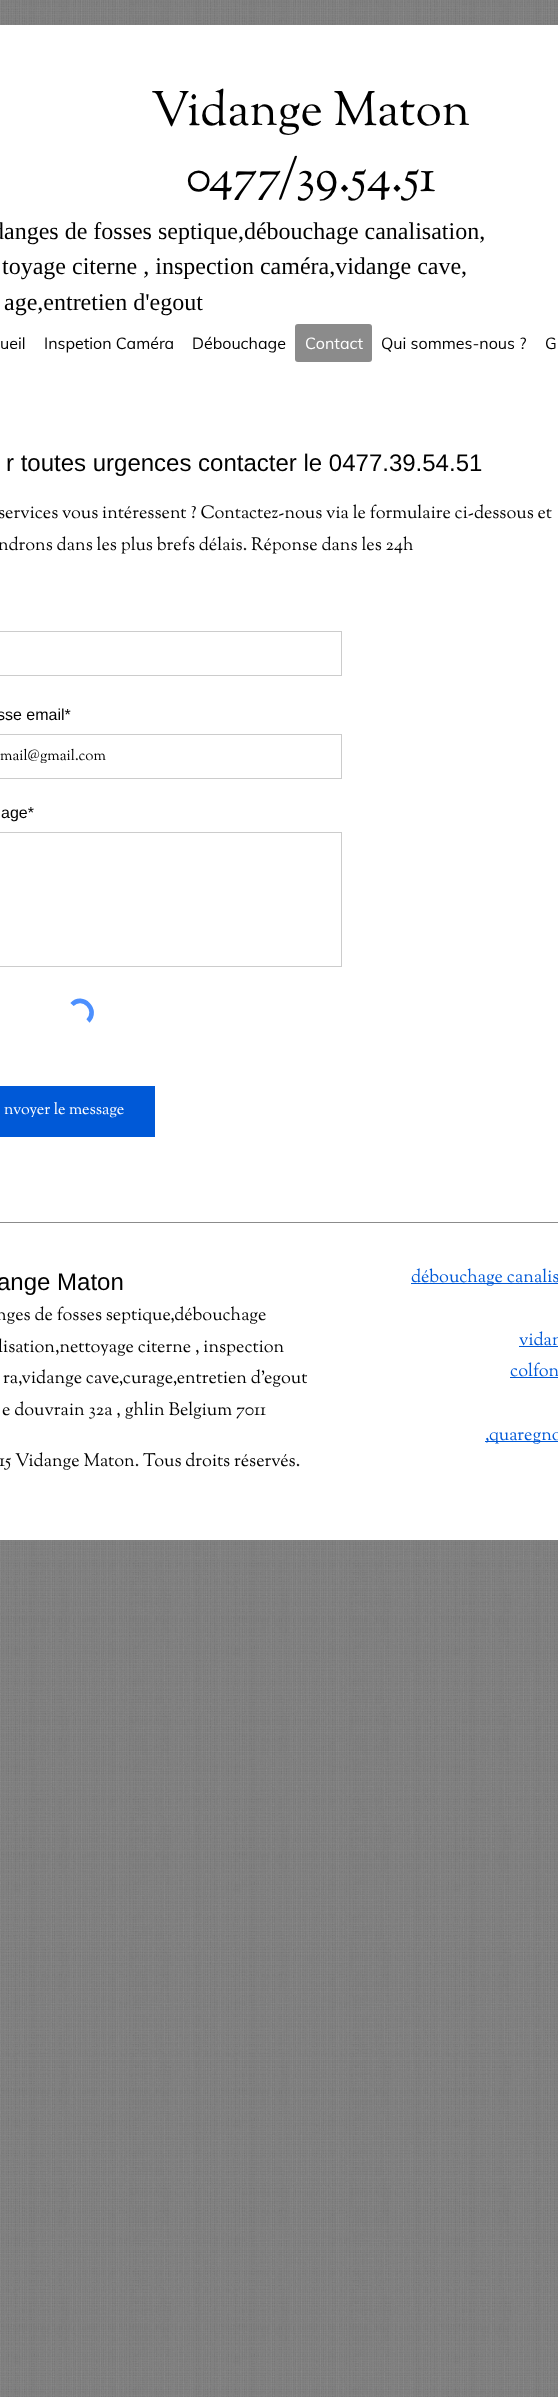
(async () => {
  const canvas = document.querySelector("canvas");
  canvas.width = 558;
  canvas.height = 2397;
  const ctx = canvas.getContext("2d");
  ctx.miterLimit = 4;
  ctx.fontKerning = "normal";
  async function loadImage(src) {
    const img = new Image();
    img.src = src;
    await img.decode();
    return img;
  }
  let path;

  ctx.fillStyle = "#ffffff";
  ctx.fillRect(0, 0, 558, 2397);
  ctx.drawImage(await loadImage("img/1.png"), 0, 0, 558, 2397);
  ctx.fillRect(0, 25, 558, 381);
  ctx.fillStyle = "#8b8b8b";
  ctx.beginPath();
  ctx.roundRect(295, 324, 77, 38, 3);
  ctx.fill();
  ctx.fillStyle = "#ffffff";
  ctx.fillRect(0, 406, 558, 1134);
  ctx.strokeStyle = "#cccccc";
  ctx.strokeRect(-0.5, 631.5, 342, 44);
  ctx.strokeRect(-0.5, 734.5, 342, 44);
  ctx.strokeRect(-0.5, 832.5, 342, 134);
  path = new Path2D("M72 1004.5C82.5 993.5 99 1010 88 1021");
  ctx.strokeStyle = "#4d90fe";
  ctx.lineWidth = 4.6;
  ctx.stroke(path);
  for (const [x, y, w, h, color] of [
    [0, 1086, 155, 51, "#0059d7"],
    [0, 1222, 558, 1, "#8b8b8b"],
    [411, 1283, 147, 1, "#0059d7"],
    [519, 1346, 39, 1, "#0059d7"],
    [510, 1377, 48, 1, "#0059d7"],
    [485, 1441, 73, 1, "#0059d7"],
  ]) {
    ctx.fillStyle = color;
    ctx.fillRect(x, y, w, h);
  }
  ctx.font = "48px Sorts Mill Goudy";
  ctx.fillStyle = "#000000";
  ctx.fillText("Vidange Maton", 151, 125);
  ctx.fillText("0477/39.54.51", 186, 191);
  ctx.font = "24px Liberation Serif";
  for (const [text, x, y] of [
    ["danges de fosses septique,débouchage canalisation,", -8, 239],
    ["toyage citerne , inspection caméra,vidange cave,", 2, 274],
    ["age,entretien d'egout", 4, 310],
  ]) {
    ctx.fillText(text, x, y);
  }
  ctx.font = "16px Muli";
  for (const [text, x, y] of [
    ["ueil", 0, 349],
    ["Inspetion Caméra", 44, 349],
    ["Débouchage", 192, 349],
  ]) {
    ctx.fillText(text, x, y);
  }
  ctx.fillStyle = "#ffffff";
  ctx.fillText("Contact", 305, 349);
  ctx.fillStyle = "#000000";
  ctx.fillText("Qui sommes-nous ?", 381, 349);
  ctx.fillText("G", 545, 349);
  ctx.font = "24px Liberation Sans";
  ctx.fillText("r toutes urgences contacter le 0477.39.54.51", 6, 471);
  ctx.font = "18px Sorts Mill Goudy";
  ctx.fillText("services vous intéressent ? Contactez-nous via le formulaire ci-dessous et", -2, 518);
  ctx.fillText("ndrons dans les plus brefs délais. Réponse dans les 24h", -2, 550);
  ctx.font = "16px Liberation Sans";
  ctx.fillText("sse email*", -3, 720);
  ctx.font = "15px Sorts Mill Goudy";
  ctx.fillText("mail@gmail.com", 0, 760);
  ctx.font = "16px Liberation Sans";
  ctx.fillText("age*", 1, 818);
  ctx.font = "16px Sorts Mill Goudy";
  ctx.fillStyle = "#ffffff";
  ctx.fillText("nvoyer le message", 4, 1114);
  ctx.font = "24px Liberation Sans";
  ctx.fillStyle = "#000000";
  ctx.fillText("ange Maton", -3, 1290);
  ctx.font = "18px Sorts Mill Goudy";
  for (const [text, x, y] of [
    ["nges de fosses septique,débouchage", -4, 1320],
    ["lisation,nettoyage citerne , inspection", -2, 1352],
    ["ra,vidange cave,curage,entretien d'egout", 3, 1383],
    ["e douvrain 32a , ghlin Belgium 7011", 2, 1415],
    ["15 Vidange Maton. Tous droits réservés.", -1, 1466],
  ]) {
    ctx.fillText(text, x, y);
  }
  ctx.fillStyle = "#0059d7";
  for (const [text, x, y] of [
    ["débouchage canalis", 411, 1282],
    ["vidan", 519, 1345],
    ["colfon", 510, 1376],
    [",quaregno", 485, 1440],
  ]) {
    ctx.fillText(text, x, y);
  }
})();
